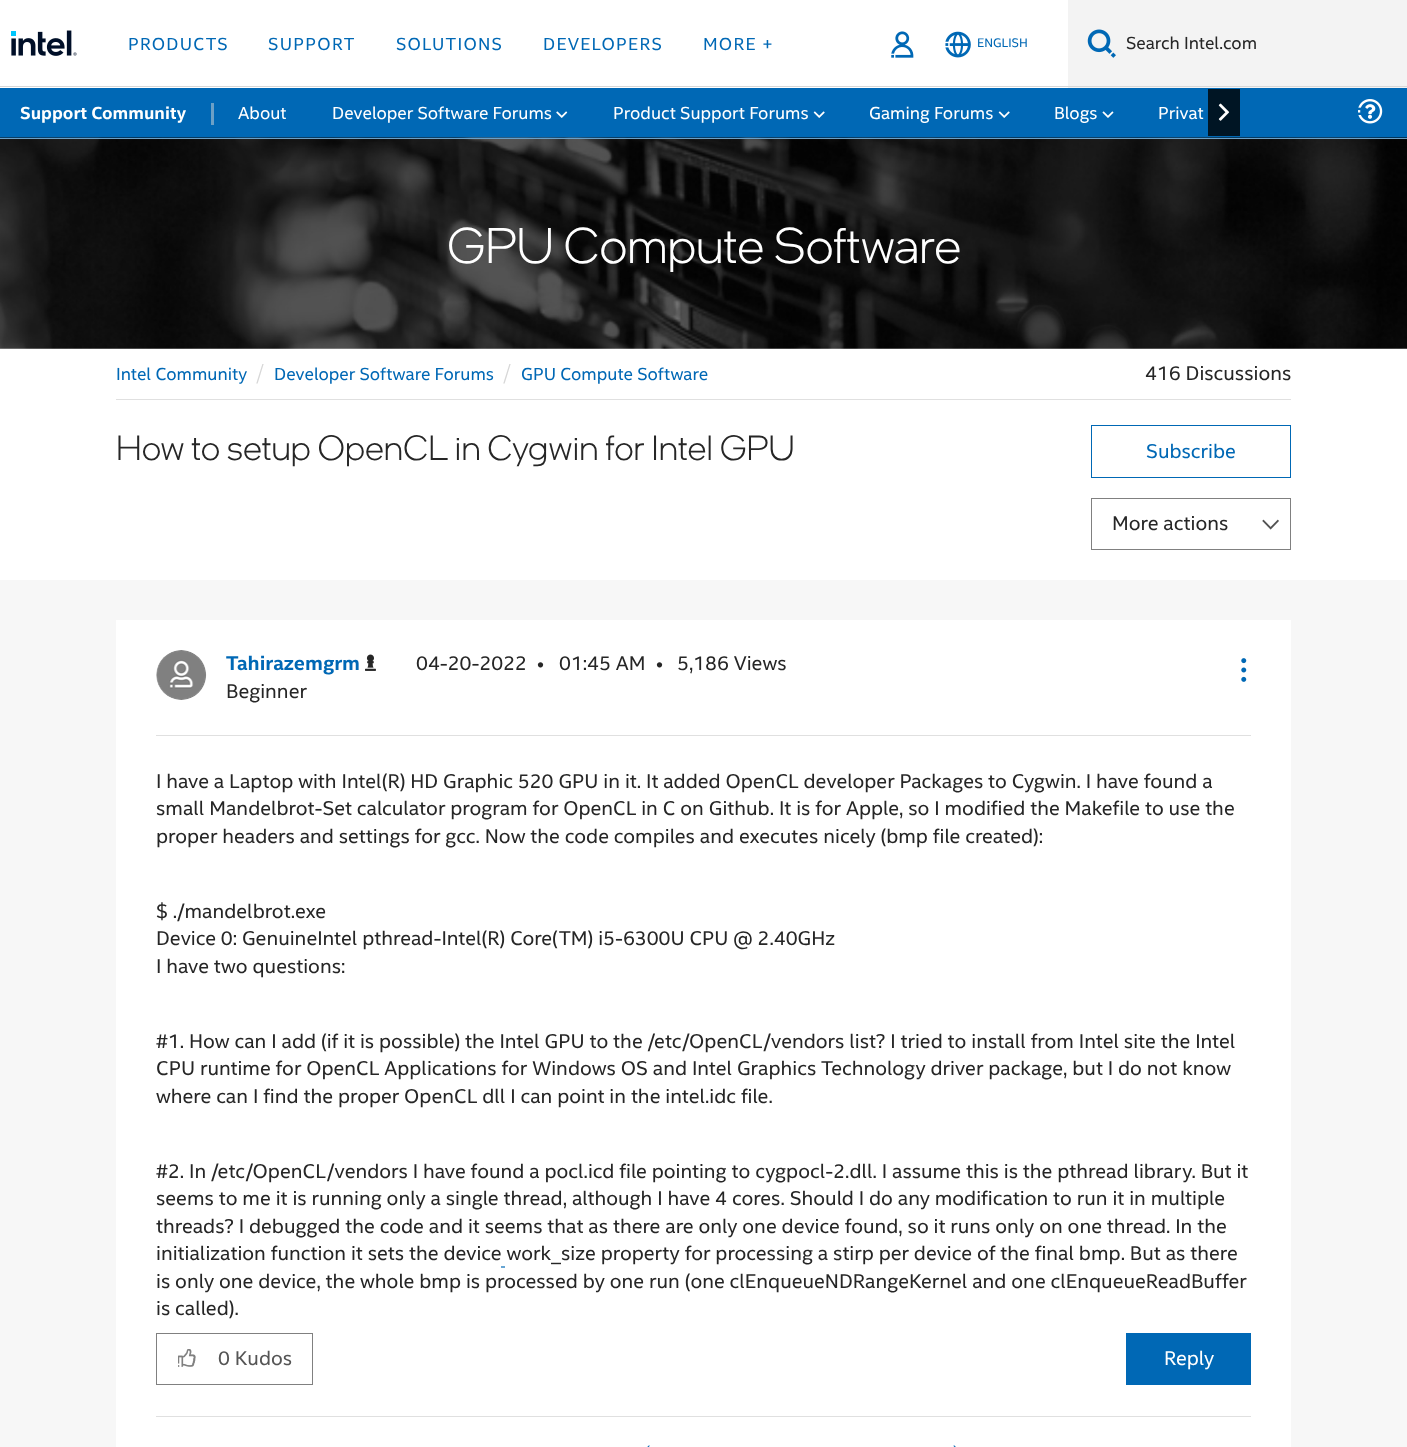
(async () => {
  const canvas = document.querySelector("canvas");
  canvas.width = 1407;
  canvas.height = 1447;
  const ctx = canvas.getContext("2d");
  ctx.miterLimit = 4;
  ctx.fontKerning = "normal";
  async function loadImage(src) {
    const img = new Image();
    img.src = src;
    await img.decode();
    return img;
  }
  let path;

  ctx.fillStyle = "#f7f7f7";
  ctx.fillRect(0, 0, 1407, 1447);
  ctx.fillStyle = "#ffffff";
  ctx.fillRect(0, 0, 1068, 88);
  ctx.fillStyle = "#d7d7d7";
  ctx.fillRect(0, 86, 1068, 1);
  ctx.drawImage(await loadImage("img/1.png"), 11, 30, 66, 26);
  ctx.drawImage(await loadImage("img/2.png"), 891, 31, 23, 27);
  ctx.drawImage(await loadImage("img/3.png"), 945, 31, 26, 27);
  ctx.fillStyle = "#f3f3f3";
  ctx.fillRect(1068, 0, 339, 88);
  ctx.fillStyle = "#d7d7d7";
  ctx.fillRect(1068, 86, 339, 1);
  ctx.drawImage(await loadImage("img/4.png"), 1087, 29, 29, 29);
  ctx.fillStyle = "#0068b5";
  ctx.fillRect(0, 88, 1407, 50);
  ctx.fillStyle = "#6ca0c6";
  ctx.fillRect(211, 103, 3, 22);
  ctx.drawImage(await loadImage("img/5.png"), 556, 111, 12, 7);
  ctx.drawImage(await loadImage("img/6.png"), 813, 111, 12, 7);
  ctx.drawImage(await loadImage("img/6.png"), 998, 111, 12, 7);
  ctx.drawImage(await loadImage("img/7.png"), 1102, 111, 12, 7);
  ctx.fillStyle = "rgba(0, 0, 0, 0.8)";
  ctx.fillRect(1208, 89, 32, 47);
  ctx.drawImage(await loadImage("img/8.png"), 1218, 103, 12, 18);
  ctx.drawImage(await loadImage("img/9.png"), 1358, 99, 25, 25);
  ctx.fillStyle = "#ffffff";
  ctx.fillRect(0, 348, 1407, 232);
  ctx.drawImage(await loadImage("img/10.png"), 0, 137, 1407, 212);
  ctx.fillStyle = "#6ca0c6";
  ctx.fillRect(0, 138, 1407, 1);
  ctx.fillStyle = "#e0e0e0";
  ctx.fillRect(116, 399, 1175, 1);
  ctx.strokeStyle = "#0068b5";
  ctx.strokeRect(1091.5, 425.5, 199, 52);
  ctx.drawImage(await loadImage("img/11.png"), 1262, 519, 17, 11);
  ctx.strokeStyle = "#808080";
  ctx.strokeRect(1091.5, 498.5, 199, 51);
  ctx.fillStyle = "#ffffff";
  ctx.fillRect(116, 620, 1175, 827);
  ctx.fillStyle = "#e0e0e0";
  ctx.fillRect(156, 735, 1095, 1);
  ctx.drawImage(await loadImage("img/12.png"), 156, 650, 51, 50);
  ctx.drawImage(await loadImage("img/13.png"), 365, 654, 11, 17);
  ctx.drawImage(await loadImage("img/14.png"), 1241, 658, 6, 24);
  path = new Path2D("M501 1267H505");
  ctx.strokeStyle = "#0068b5";
  ctx.lineWidth = 1.2;
  ctx.stroke(path);
  ctx.strokeStyle = "#808080";
  ctx.lineWidth = 1;
  ctx.strokeRect(156.5, 1333.5, 156, 51);
  ctx.drawImage(await loadImage("img/15.png"), 178, 1349, 18, 18);
  ctx.fillStyle = "#0068b5";
  ctx.fillRect(1126, 1333, 125, 52);
  ctx.fillStyle = "#e0e0e0";
  ctx.fillRect(156, 1416, 1095, 1);
  ctx.drawImage(await loadImage("img/16.png"), 647, 1445, 3, 2);
  ctx.drawImage(await loadImage("img/17.png"), 953, 1445, 3, 2);
  ctx.letterSpacing = "1.25px";
  ctx.font = "17.5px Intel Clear";
  ctx.fillStyle = "#0068b5";
  for (const [text, x, y] of [
    ["PRODUCTS", 128, 50],
    ["SUPPORT", 268, 50],
    ["SOLUTIONS", 396, 50],
    ["DEVELOPERS", 543, 50],
    ["MORE +", 703, 50],
  ]) {
    ctx.fillText(text, x, y);
  }
  ctx.letterSpacing = "0px";
  ctx.font = "12.5px Intel Clear";
  ctx.fillText("ENGLISH", 977, 47);
  ctx.font = "17.5px Intel Clear";
  ctx.fillStyle = "#262626";
  ctx.fillText("Search Intel.com", 1126, 49);
  ctx.font = "bold 17.5px Intel Clear";
  ctx.fillStyle = "#ffffff";
  ctx.fillText("Support Community", 20, 119);
  ctx.font = "17.5px Intel Clear";
  for (const [text, x, y] of [
    ["About", 238, 119],
    ["Developer Software Forums", 332, 119],
    ["Product Support Forums", 613, 119],
    ["Gaming Forums", 869, 119],
    ["Blogs", 1054, 119],
    ["Privat", 1158, 119],
  ]) {
    ctx.fillText(text, x, y);
  }
  ctx.font = "300 50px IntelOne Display";
  ctx.fillText("GPU Compute Software", 447, 263);
  ctx.font = "17.5px Intel Clear";
  ctx.fillStyle = "#0068b5";
  ctx.fillText("Intel Community", 116, 380);
  ctx.font = "300 22px Intel Clear";
  ctx.fillStyle = "#d7d7d7";
  ctx.fillText("/", 256, 380);
  ctx.font = "17.5px Intel Clear";
  ctx.fillStyle = "#0068b5";
  ctx.fillText("Developer Software Forums", 274, 380);
  ctx.font = "300 22px Intel Clear";
  ctx.fillStyle = "#d7d7d7";
  ctx.fillText("/", 503, 380);
  ctx.font = "17.5px Intel Clear";
  ctx.fillStyle = "#0068b5";
  ctx.fillText("GPU Compute Software", 521, 380);
  ctx.font = "20px Intel Clear";
  ctx.fillStyle = "#262626";
  ctx.fillText("416 Discussions", 1145, 380);
  ctx.font = "300 35px IntelOne Display";
  ctx.fillText("How to setup OpenCL in Cygwin for Intel GPU", 116, 460);
  ctx.font = "20px Intel Clear";
  ctx.fillStyle = "#0068b5";
  ctx.fillText("Subscribe", 1146, 458);
  ctx.fillStyle = "#262626";
  ctx.fillText("More actions", 1112, 530);
  ctx.font = "bold 20px Intel Clear";
  ctx.fillStyle = "#0068b5";
  ctx.fillText("Tahirazemgrm", 226, 670);
  ctx.font = "20px Intel Clear";
  ctx.fillStyle = "#262626";
  for (const [text, x, y] of [
    ["Beginner", 226, 698],
    ["04-20-2022", 416, 670],
    ["•", 537, 670],
    ["01:45 AM", 559, 670],
    ["•", 656, 670],
    ["5,186 Views", 677, 670],
    ["I have a Laptop with Intel(R) HD Graphic 520 GPU in it. It added OpenCL developer Packages to Cygwin. I have found a", 156, 788],
    ["small Mandelbrot-Set calculator program for OpenCL in C on Github. It is for Apple, so I modified the Makefile to use the", 156, 815],
    ["proper headers and settings for gcc. Now the code compiles and executes nicely (bmp file created):", 156, 843],
    ["$ ./mandelbrot.exe", 156, 918],
    ["Device 0: GenuineIntel pthread-Intel(R) Core(TM) i5-6300U CPU @ 2.40GHz", 156, 945],
    ["I have two questions:", 156, 973],
    ["#1. How can I add (if it is possible) the Intel GPU to the /etc/OpenCL/vendors list? I tried to install from Intel site the Intel", 156, 1048],
    ["CPU runtime for OpenCL Applications for Windows OS and Intel Graphics Technology driver package, but I do not know", 156, 1075],
    ["where can I find the proper OpenCL dll I can point in the intel.idc file.", 156, 1103],
    ["#2. In /etc/OpenCL/vendors I have found a pocl.icd file pointing to cygpocl-2.dll. I assume this is the pthread library. But it", 156, 1178],
    ["seems to me it is running only a single thread, although I have 4 cores. Should I do any modification to run it in multiple", 156, 1205],
    ["threads? I debugged the code and it seems that as there are only one device found, so it runs only on one thread. In the", 156, 1233],
    ["initialization function it sets the device work_size property for processing a stirp per device of the final bmp. But as there", 156, 1260],
    ["is only one device, the whole bmp is processed by one run (one clEnqueueNDRangeKernel and one clEnqueueReadBuffer", 156, 1288],
    ["is called).", 156, 1315],
  ]) {
    ctx.fillText(text, x, y);
  }
  ctx.fillStyle = "#555555";
  ctx.fillText("0 Kudos", 218, 1365);
  ctx.fillStyle = "#ffffff";
  ctx.fillText("Reply", 1164, 1365);
})();
